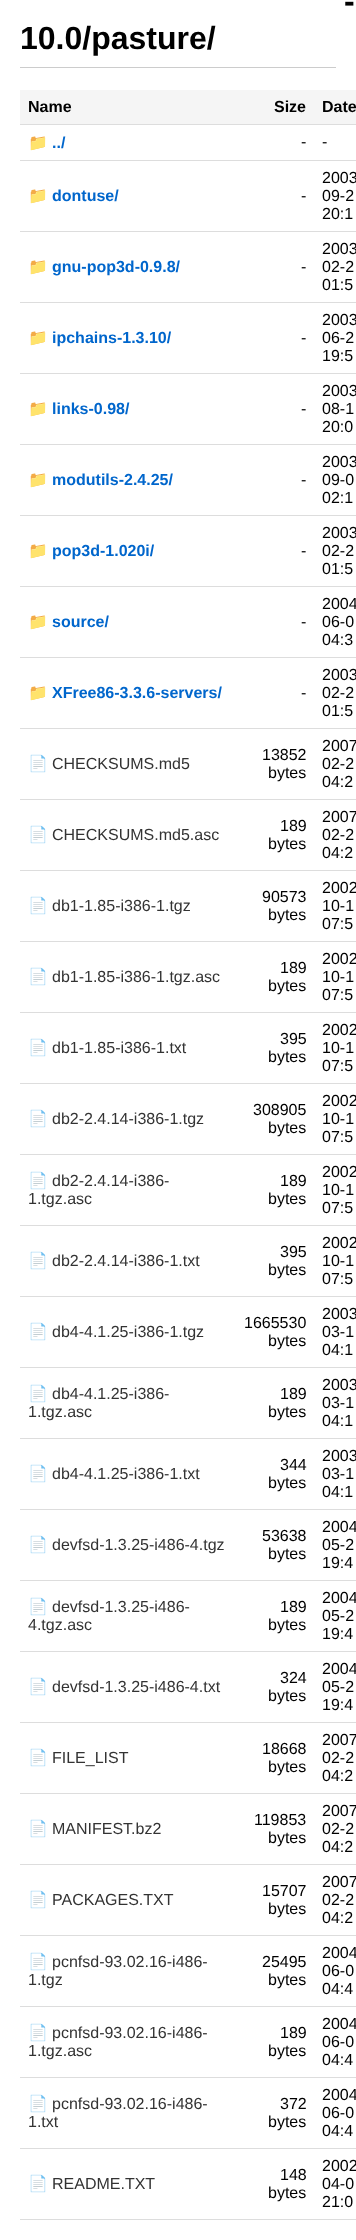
(async () => {
  const canvas = document.querySelector("canvas");
  canvas.width = 356;
  canvas.height = 2240;
  const ctx = canvas.getContext("2d");
  ctx.miterLimit = 4;
  ctx.fontKerning = "normal";

  ctx.fillStyle = "#ffffff";
  ctx.fillRect(0, 0, 356, 2240);
  for (const [x, y, w, h, color] of [
    [20, 67, 316, 1, "#cccccc"],
    [20, 90, 336, 34, "#f5f5f5"],
    [20, 124, 336, 1, "#dddddd"],
    [20, 160, 336, 1, "#dddddd"],
    [20, 231, 336, 1, "#dddddd"],
    [20, 302, 336, 1, "#dddddd"],
    [20, 373, 336, 1, "#dddddd"],
    [20, 444, 336, 1, "#dddddd"],
    [20, 515, 336, 1, "#dddddd"],
    [20, 586, 336, 1, "#dddddd"],
    [20, 657, 336, 1, "#dddddd"],
    [20, 728, 336, 1, "#dddddd"],
    [20, 799, 336, 1, "#dddddd"],
    [20, 870, 336, 1, "#dddddd"],
    [20, 941, 336, 1, "#dddddd"],
    [20, 1012, 336, 1, "#dddddd"],
    [20, 1083, 336, 1, "#dddddd"],
    [20, 1154, 336, 1, "#dddddd"],
    [20, 1225, 336, 1, "#dddddd"],
    [20, 1296, 336, 1, "#dddddd"],
    [20, 1367, 336, 1, "#dddddd"],
    [20, 1438, 336, 1, "#dddddd"],
    [20, 1509, 336, 1, "#dddddd"],
    [20, 1580, 336, 1, "#dddddd"],
    [20, 1651, 336, 1, "#dddddd"],
    [20, 1722, 336, 1, "#dddddd"],
    [20, 1793, 336, 1, "#dddddd"],
    [20, 1864, 336, 1, "#dddddd"],
    [20, 1935, 336, 1, "#dddddd"],
    [20, 2006, 336, 1, "#dddddd"],
    [20, 2077, 336, 1, "#dddddd"],
    [20, 2148, 336, 1, "#dddddd"],
    [20, 2219, 336, 1, "#dddddd"],
  ]) {
    ctx.fillStyle = color;
    ctx.fillRect(x, y, w, h);
  }
  ctx.font = "bold 32px Liberation Sans";
  ctx.fillStyle = "#000000";
  ctx.fillText("-", 344, 12);
  ctx.fillText("10.0/pasture/", 20, 49);
  ctx.font = "bold 16px Liberation Sans";
  for (const [text, x, y] of [
    ["Name", 28, 112],
    ["Size", 274, 112],
    ["Date", 322, 112],
  ]) {
    ctx.fillText(text, x, y);
  }
  ctx.font = "bold 16px Noto Color Emoji";
  ctx.fillStyle = "#0066cc";
  ctx.fillText("📁", 28, 148);
  ctx.font = "bold 16px Liberation Sans";
  ctx.fillText("../", 52, 148);
  ctx.font = "16px Liberation Sans";
  ctx.fillStyle = "#000000";
  ctx.fillText("-", 301, 147);
  ctx.fillText("-", 322, 147);
  ctx.font = "bold 16px Noto Color Emoji";
  ctx.fillStyle = "#0066cc";
  ctx.fillText("📁", 28, 201);
  ctx.font = "bold 16px Liberation Sans";
  ctx.fillText("dontuse/", 52, 201);
  ctx.font = "16px Liberation Sans";
  ctx.fillStyle = "#000000";
  for (const [text, x, y] of [
    ["-", 301, 201],
    ["2003", 322, 183],
    ["09-2", 322, 201],
    ["20:1", 322, 219],
  ]) {
    ctx.fillText(text, x, y);
  }
  ctx.font = "bold 16px Noto Color Emoji";
  ctx.fillStyle = "#0066cc";
  ctx.fillText("📁", 28, 272);
  ctx.font = "bold 16px Liberation Sans";
  ctx.fillText("gnu-pop3d-0.9.8/", 52, 272);
  ctx.font = "16px Liberation Sans";
  ctx.fillStyle = "#000000";
  for (const [text, x, y] of [
    ["-", 301, 272],
    ["2003", 322, 254],
    ["02-2", 322, 272],
    ["01:5", 322, 290],
  ]) {
    ctx.fillText(text, x, y);
  }
  ctx.font = "bold 16px Noto Color Emoji";
  ctx.fillStyle = "#0066cc";
  ctx.fillText("📁", 28, 343);
  ctx.font = "bold 16px Liberation Sans";
  ctx.fillText("ipchains-1.3.10/", 52, 343);
  ctx.font = "16px Liberation Sans";
  ctx.fillStyle = "#000000";
  for (const [text, x, y] of [
    ["-", 301, 343],
    ["2003", 322, 325],
    ["06-2", 322, 343],
    ["19:5", 322, 361],
  ]) {
    ctx.fillText(text, x, y);
  }
  ctx.font = "bold 16px Noto Color Emoji";
  ctx.fillStyle = "#0066cc";
  ctx.fillText("📁", 28, 414);
  ctx.font = "bold 16px Liberation Sans";
  ctx.fillText("links-0.98/", 52, 414);
  ctx.font = "16px Liberation Sans";
  ctx.fillStyle = "#000000";
  for (const [text, x, y] of [
    ["-", 301, 414],
    ["2003", 322, 396],
    ["08-1", 322, 414],
    ["20:0", 322, 432],
  ]) {
    ctx.fillText(text, x, y);
  }
  ctx.font = "bold 16px Noto Color Emoji";
  ctx.fillStyle = "#0066cc";
  ctx.fillText("📁", 28, 485);
  ctx.font = "bold 16px Liberation Sans";
  ctx.fillText("modutils-2.4.25/", 52, 485);
  ctx.font = "16px Liberation Sans";
  ctx.fillStyle = "#000000";
  for (const [text, x, y] of [
    ["-", 301, 485],
    ["2003", 322, 467],
    ["09-0", 322, 485],
    ["02:1", 322, 503],
  ]) {
    ctx.fillText(text, x, y);
  }
  ctx.font = "bold 16px Noto Color Emoji";
  ctx.fillStyle = "#0066cc";
  ctx.fillText("📁", 28, 556);
  ctx.font = "bold 16px Liberation Sans";
  ctx.fillText("pop3d-1.020i/", 52, 556);
  ctx.font = "16px Liberation Sans";
  ctx.fillStyle = "#000000";
  for (const [text, x, y] of [
    ["-", 301, 556],
    ["2003", 322, 538],
    ["02-2", 322, 556],
    ["01:5", 322, 574],
  ]) {
    ctx.fillText(text, x, y);
  }
  ctx.font = "bold 16px Noto Color Emoji";
  ctx.fillStyle = "#0066cc";
  ctx.fillText("📁", 28, 627);
  ctx.font = "bold 16px Liberation Sans";
  ctx.fillText("source/", 52, 627);
  ctx.font = "16px Liberation Sans";
  ctx.fillStyle = "#000000";
  for (const [text, x, y] of [
    ["-", 301, 627],
    ["2004", 322, 609],
    ["06-0", 322, 627],
    ["04:3", 322, 645],
  ]) {
    ctx.fillText(text, x, y);
  }
  ctx.font = "bold 16px Noto Color Emoji";
  ctx.fillStyle = "#0066cc";
  ctx.fillText("📁", 28, 698);
  ctx.font = "bold 16px Liberation Sans";
  ctx.fillText("XFree86-3.3.6-servers/", 52, 698);
  ctx.font = "16px Liberation Sans";
  ctx.fillStyle = "#000000";
  for (const [text, x, y] of [
    ["-", 301, 698],
    ["2003", 322, 680],
    ["02-2", 322, 698],
    ["01:5", 322, 716],
  ]) {
    ctx.fillText(text, x, y);
  }
  ctx.font = "16px Noto Color Emoji";
  ctx.fillStyle = "#333333";
  ctx.fillText("📄", 28, 769);
  ctx.font = "16px Liberation Sans";
  ctx.fillText("CHECKSUMS.md5", 52, 769);
  ctx.fillStyle = "#000000";
  for (const [text, x, y] of [
    ["13852", 262, 760],
    ["bytes", 268, 778],
    ["2007", 322, 751],
    ["02-2", 322, 769],
    ["04:2", 322, 787],
  ]) {
    ctx.fillText(text, x, y);
  }
  ctx.font = "16px Noto Color Emoji";
  ctx.fillStyle = "#333333";
  ctx.fillText("📄", 28, 840);
  ctx.font = "16px Liberation Sans";
  ctx.fillText("CHECKSUMS.md5.asc", 52, 840);
  ctx.fillStyle = "#000000";
  for (const [text, x, y] of [
    ["189", 280, 831],
    ["bytes", 268, 849],
    ["2007", 322, 822],
    ["02-2", 322, 840],
    ["04:2", 322, 858],
  ]) {
    ctx.fillText(text, x, y);
  }
  ctx.font = "16px Noto Color Emoji";
  ctx.fillStyle = "#333333";
  ctx.fillText("📄", 28, 911);
  ctx.font = "16px Liberation Sans";
  ctx.fillText("db1-1.85-i386-1.tgz", 52, 911);
  ctx.fillStyle = "#000000";
  for (const [text, x, y] of [
    ["90573", 262, 902],
    ["bytes", 268, 920],
    ["2002", 322, 893],
    ["10-1", 322, 911],
    ["07:5", 322, 929],
  ]) {
    ctx.fillText(text, x, y);
  }
  ctx.font = "16px Noto Color Emoji";
  ctx.fillStyle = "#333333";
  ctx.fillText("📄", 28, 982);
  ctx.font = "16px Liberation Sans";
  ctx.fillText("db1-1.85-i386-1.tgz.asc", 52, 982);
  ctx.fillStyle = "#000000";
  for (const [text, x, y] of [
    ["189", 280, 973],
    ["bytes", 268, 991],
    ["2002", 322, 964],
    ["10-1", 322, 982],
    ["07:5", 322, 1000],
  ]) {
    ctx.fillText(text, x, y);
  }
  ctx.font = "16px Noto Color Emoji";
  ctx.fillStyle = "#333333";
  ctx.fillText("📄", 28, 1053);
  ctx.font = "16px Liberation Sans";
  ctx.fillText("db1-1.85-i386-1.txt", 52, 1053);
  ctx.fillStyle = "#000000";
  for (const [text, x, y] of [
    ["395", 280, 1044],
    ["bytes", 268, 1062],
    ["2002", 322, 1035],
    ["10-1", 322, 1053],
    ["07:5", 322, 1071],
  ]) {
    ctx.fillText(text, x, y);
  }
  ctx.font = "16px Noto Color Emoji";
  ctx.fillStyle = "#333333";
  ctx.fillText("📄", 28, 1124);
  ctx.font = "16px Liberation Sans";
  ctx.fillText("db2-2.4.14-i386-1.tgz", 52, 1124);
  ctx.fillStyle = "#000000";
  for (const [text, x, y] of [
    ["308905", 253, 1115],
    ["bytes", 268, 1133],
    ["2002", 322, 1106],
    ["10-1", 322, 1124],
    ["07:5", 322, 1142],
  ]) {
    ctx.fillText(text, x, y);
  }
  ctx.font = "16px Noto Color Emoji";
  ctx.fillStyle = "#333333";
  ctx.fillText("📄", 28, 1186);
  ctx.font = "16px Liberation Sans";
  ctx.fillText("db2-2.4.14-i386-", 52, 1186);
  ctx.fillText("1.tgz.asc", 28, 1204);
  ctx.fillStyle = "#000000";
  for (const [text, x, y] of [
    ["189", 280, 1186],
    ["bytes", 268, 1204],
    ["2002", 322, 1177],
    ["10-1", 322, 1195],
    ["07:5", 322, 1213],
  ]) {
    ctx.fillText(text, x, y);
  }
  ctx.font = "16px Noto Color Emoji";
  ctx.fillStyle = "#333333";
  ctx.fillText("📄", 28, 1266);
  ctx.font = "16px Liberation Sans";
  ctx.fillText("db2-2.4.14-i386-1.txt", 52, 1266);
  ctx.fillStyle = "#000000";
  for (const [text, x, y] of [
    ["395", 280, 1257],
    ["bytes", 268, 1275],
    ["2002", 322, 1248],
    ["10-1", 322, 1266],
    ["07:5", 322, 1284],
  ]) {
    ctx.fillText(text, x, y);
  }
  ctx.font = "16px Noto Color Emoji";
  ctx.fillStyle = "#333333";
  ctx.fillText("📄", 28, 1337);
  ctx.font = "16px Liberation Sans";
  ctx.fillText("db4-4.1.25-i386-1.tgz", 52, 1337);
  ctx.fillStyle = "#000000";
  for (const [text, x, y] of [
    ["1665530", 244, 1328],
    ["bytes", 268, 1346],
    ["2003", 322, 1319],
    ["03-1", 322, 1337],
    ["04:1", 322, 1355],
  ]) {
    ctx.fillText(text, x, y);
  }
  ctx.font = "16px Noto Color Emoji";
  ctx.fillStyle = "#333333";
  ctx.fillText("📄", 28, 1399);
  ctx.font = "16px Liberation Sans";
  ctx.fillText("db4-4.1.25-i386-", 52, 1399);
  ctx.fillText("1.tgz.asc", 28, 1417);
  ctx.fillStyle = "#000000";
  for (const [text, x, y] of [
    ["189", 280, 1399],
    ["bytes", 268, 1417],
    ["2003", 322, 1390],
    ["03-1", 322, 1408],
    ["04:1", 322, 1426],
  ]) {
    ctx.fillText(text, x, y);
  }
  ctx.font = "16px Noto Color Emoji";
  ctx.fillStyle = "#333333";
  ctx.fillText("📄", 28, 1479);
  ctx.font = "16px Liberation Sans";
  ctx.fillText("db4-4.1.25-i386-1.txt", 52, 1479);
  ctx.fillStyle = "#000000";
  for (const [text, x, y] of [
    ["344", 280, 1470],
    ["bytes", 268, 1488],
    ["2003", 322, 1461],
    ["03-1", 322, 1479],
    ["04:1", 322, 1497],
  ]) {
    ctx.fillText(text, x, y);
  }
  ctx.font = "16px Noto Color Emoji";
  ctx.fillStyle = "#333333";
  ctx.fillText("📄", 28, 1550);
  ctx.font = "16px Liberation Sans";
  ctx.fillText("devfsd-1.3.25-i486-4.tgz", 52, 1550);
  ctx.fillStyle = "#000000";
  for (const [text, x, y] of [
    ["53638", 262, 1541],
    ["bytes", 268, 1559],
    ["2004", 322, 1532],
    ["05-2", 322, 1550],
    ["19:4", 322, 1568],
  ]) {
    ctx.fillText(text, x, y);
  }
  ctx.font = "16px Noto Color Emoji";
  ctx.fillStyle = "#333333";
  ctx.fillText("📄", 28, 1612);
  ctx.font = "16px Liberation Sans";
  ctx.fillText("devfsd-1.3.25-i486-", 52, 1612);
  ctx.fillText("4.tgz.asc", 28, 1630);
  ctx.fillStyle = "#000000";
  for (const [text, x, y] of [
    ["189", 280, 1612],
    ["bytes", 268, 1630],
    ["2004", 322, 1603],
    ["05-2", 322, 1621],
    ["19:4", 322, 1639],
  ]) {
    ctx.fillText(text, x, y);
  }
  ctx.font = "16px Noto Color Emoji";
  ctx.fillStyle = "#333333";
  ctx.fillText("📄", 28, 1692);
  ctx.font = "16px Liberation Sans";
  ctx.fillText("devfsd-1.3.25-i486-4.txt", 52, 1692);
  ctx.fillStyle = "#000000";
  for (const [text, x, y] of [
    ["324", 280, 1683],
    ["bytes", 268, 1701],
    ["2004", 322, 1674],
    ["05-2", 322, 1692],
    ["19:4", 322, 1710],
  ]) {
    ctx.fillText(text, x, y);
  }
  ctx.font = "16px Noto Color Emoji";
  ctx.fillStyle = "#333333";
  ctx.fillText("📄", 28, 1763);
  ctx.font = "16px Liberation Sans";
  ctx.fillText("FILE_LIST", 52, 1763);
  ctx.fillStyle = "#000000";
  for (const [text, x, y] of [
    ["18668", 262, 1754],
    ["bytes", 268, 1772],
    ["2007", 322, 1745],
    ["02-2", 322, 1763],
    ["04:2", 322, 1781],
  ]) {
    ctx.fillText(text, x, y);
  }
  ctx.font = "16px Noto Color Emoji";
  ctx.fillStyle = "#333333";
  ctx.fillText("📄", 28, 1834);
  ctx.font = "16px Liberation Sans";
  ctx.fillText("MANIFEST.bz2", 52, 1834);
  ctx.fillStyle = "#000000";
  for (const [text, x, y] of [
    ["119853", 254, 1825],
    ["bytes", 268, 1843],
    ["2007", 322, 1816],
    ["02-2", 322, 1834],
    ["04:2", 322, 1852],
  ]) {
    ctx.fillText(text, x, y);
  }
  ctx.font = "16px Noto Color Emoji";
  ctx.fillStyle = "#333333";
  ctx.fillText("📄", 28, 1905);
  ctx.font = "16px Liberation Sans";
  ctx.fillText("PACKAGES.TXT", 52, 1905);
  ctx.fillStyle = "#000000";
  for (const [text, x, y] of [
    ["15707", 262, 1896],
    ["bytes", 268, 1914],
    ["2007", 322, 1887],
    ["02-2", 322, 1905],
    ["04:2", 322, 1923],
  ]) {
    ctx.fillText(text, x, y);
  }
  ctx.font = "16px Noto Color Emoji";
  ctx.fillStyle = "#333333";
  ctx.fillText("📄", 28, 1967);
  ctx.font = "16px Liberation Sans";
  ctx.fillText("pcnfsd-93.02.16-i486-", 52, 1967);
  ctx.fillText("1.tgz", 28, 1985);
  ctx.fillStyle = "#000000";
  for (const [text, x, y] of [
    ["25495", 262, 1967],
    ["bytes", 268, 1985],
    ["2004", 322, 1958],
    ["06-0", 322, 1976],
    ["04:4", 322, 1994],
  ]) {
    ctx.fillText(text, x, y);
  }
  ctx.font = "16px Noto Color Emoji";
  ctx.fillStyle = "#333333";
  ctx.fillText("📄", 28, 2038);
  ctx.font = "16px Liberation Sans";
  ctx.fillText("pcnfsd-93.02.16-i486-", 52, 2038);
  ctx.fillText("1.tgz.asc", 28, 2056);
  ctx.fillStyle = "#000000";
  for (const [text, x, y] of [
    ["189", 280, 2038],
    ["bytes", 268, 2056],
    ["2004", 322, 2029],
    ["06-0", 322, 2047],
    ["04:4", 322, 2065],
  ]) {
    ctx.fillText(text, x, y);
  }
  ctx.font = "16px Noto Color Emoji";
  ctx.fillStyle = "#333333";
  ctx.fillText("📄", 28, 2109);
  ctx.font = "16px Liberation Sans";
  ctx.fillText("pcnfsd-93.02.16-i486-", 52, 2109);
  ctx.fillText("1.txt", 28, 2127);
  ctx.fillStyle = "#000000";
  for (const [text, x, y] of [
    ["372", 280, 2109],
    ["bytes", 268, 2127],
    ["2004", 322, 2100],
    ["06-0", 322, 2118],
    ["04:4", 322, 2136],
  ]) {
    ctx.fillText(text, x, y);
  }
  ctx.font = "16px Noto Color Emoji";
  ctx.fillStyle = "#333333";
  ctx.fillText("📄", 28, 2189);
  ctx.font = "16px Liberation Sans";
  ctx.fillText("README.TXT", 52, 2189);
  ctx.fillStyle = "#000000";
  for (const [text, x, y] of [
    ["148", 280, 2180],
    ["bytes", 268, 2198],
    ["2002", 322, 2171],
    ["04-0", 322, 2189],
    ["21:0", 322, 2207],
  ]) {
    ctx.fillText(text, x, y);
  }
})();
